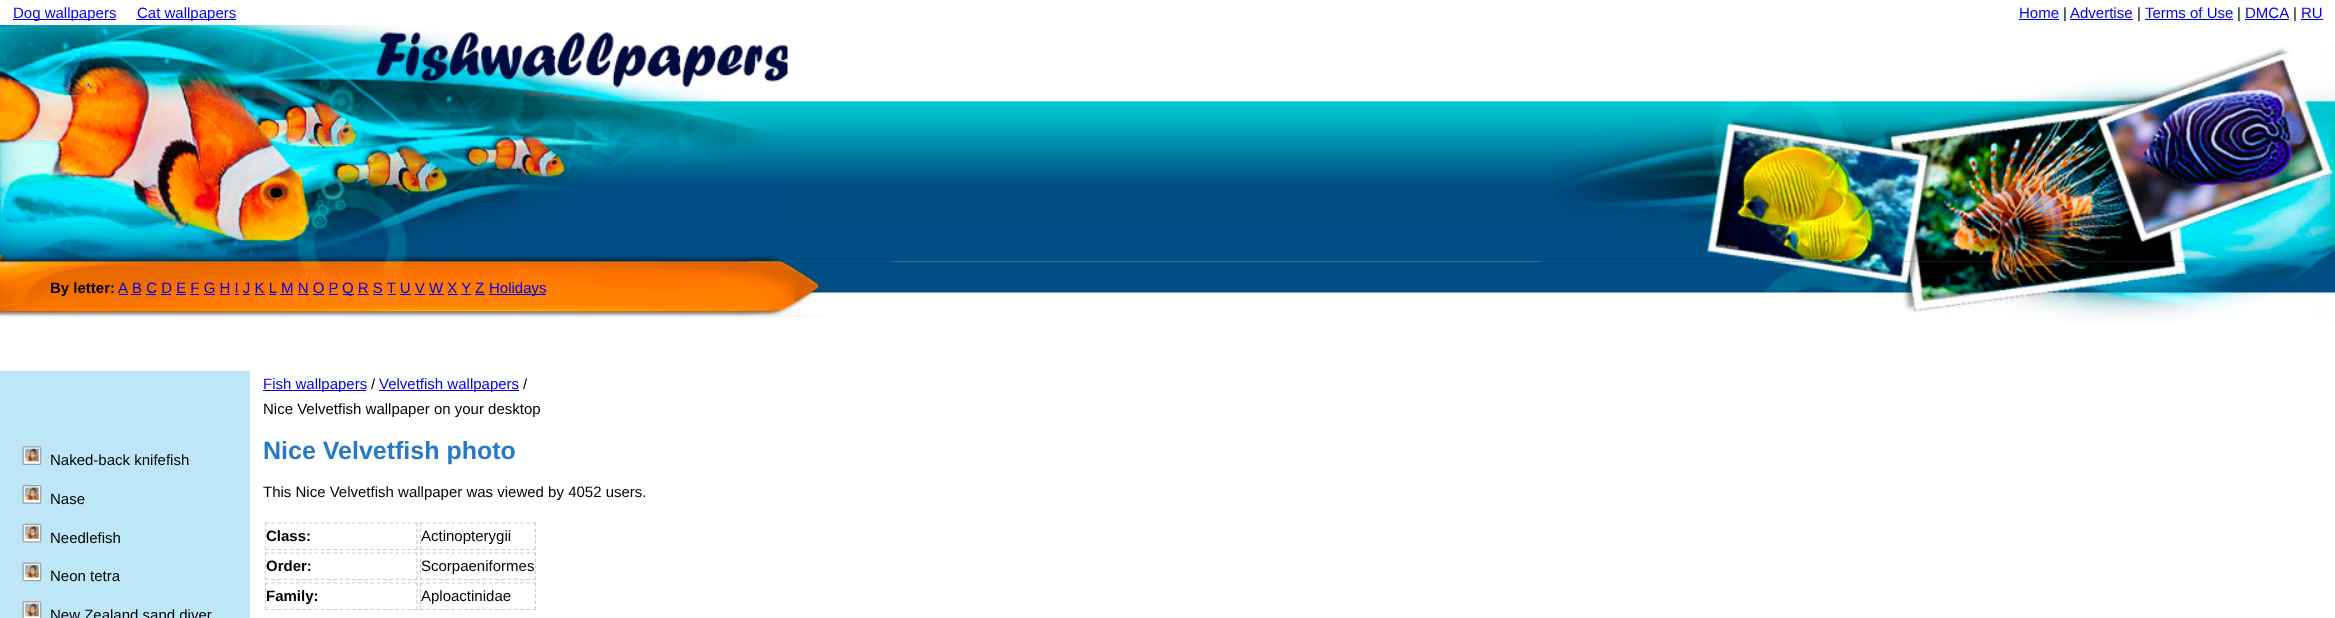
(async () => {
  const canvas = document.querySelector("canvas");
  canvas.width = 2335;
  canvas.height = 618;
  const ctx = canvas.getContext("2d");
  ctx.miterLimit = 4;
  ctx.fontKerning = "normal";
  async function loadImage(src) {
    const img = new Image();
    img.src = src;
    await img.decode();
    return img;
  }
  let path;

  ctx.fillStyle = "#ffffff";
  ctx.fillRect(0, 0, 2335, 618);
  for (const [x, y, w, h, color] of [
    [13, 19, 103, 1, "#0000ee"],
    [136, 19, 100, 1, "#0000ee"],
    [2019, 19, 40, 1, "#0000ee"],
    [2070, 19, 63, 1, "#0000ee"],
    [2145, 19, 88, 1, "#0000ee"],
    [2245, 19, 44, 1, "#0000ee"],
    [2301, 19, 22, 1, "#0000ee"],
  ]) {
    ctx.fillStyle = color;
    ctx.fillRect(x, y, w, h);
  }
  ctx.drawImage(await loadImage("img/1.png"), 0, 97, 2335, 165);
  ctx.drawImage(await loadImage("img/3.png"), 1555, 46, 780, 216);
  ctx.drawImage(await loadImage("img/4.png"), 0, 261, 2335, 62);
  ctx.drawImage(await loadImage("img/5.png"), 0, 261, 893, 57);
  ctx.drawImage(await loadImage("img/2.png"), 0, 25, 788, 237);
  for (const [x, y, w, h, color] of [
    [119, 294, 9, 1, "#0000ee"],
    [131, 294, 10, 1, "#0000ee"],
    [280, 294, 13, 1, "#0000ee"],
    [343, 294, 11, 1, "#0000ee"],
    [489, 294, 57, 1, "#0000ee"],
    [146, 294, 10, 1, "#0000ee"],
    [161, 294, 10, 1, "#0000ee"],
    [176, 294, 10, 1, "#0000ee"],
    [190, 294, 9, 1, "#0000ee"],
    [204, 294, 11, 1, "#0000ee"],
    [220, 294, 10, 1, "#0000ee"],
    [235, 294, 4, 1, "#0000ee"],
    [243, 294, 7, 1, "#0000ee"],
    [255, 294, 10, 1, "#0000ee"],
    [269, 294, 7, 1, "#0000ee"],
    [298, 294, 11, 1, "#0000ee"],
    [313, 294, 11, 1, "#0000ee"],
    [329, 294, 9, 1, "#0000ee"],
    [358, 294, 11, 1, "#0000ee"],
    [373, 294, 10, 1, "#0000ee"],
    [388, 294, 8, 1, "#0000ee"],
    [400, 294, 11, 1, "#0000ee"],
    [415, 294, 10, 1, "#0000ee"],
    [429, 294, 15, 1, "#0000ee"],
    [448, 294, 10, 1, "#0000ee"],
    [461, 294, 10, 1, "#0000ee"],
    [475, 294, 10, 1, "#0000ee"],
    [0, 371, 250, 247, "#bde7f7"],
  ]) {
    ctx.fillStyle = color;
    ctx.fillRect(x, y, w, h);
  }
  ctx.drawImage(await loadImage("img/6.png"), 22, 446, 20, 19);
  ctx.drawImage(await loadImage("img/7.png"), 22, 485, 20, 19);
  ctx.drawImage(await loadImage("img/8.png"), 22, 523, 20, 20);
  ctx.drawImage(await loadImage("img/9.png"), 22, 562, 20, 20);
  ctx.drawImage(await loadImage("img/10.png"), 22, 601, 20, 17);
  ctx.fillStyle = "#0000ee";
  ctx.fillRect(263, 390, 103, 1);
  ctx.fillRect(379, 390, 140, 1);
  path = new Path2D("M265 523H417.5");
  ctx.strokeStyle = "#cccccc";
  ctx.lineWidth = 1.2;
  ctx.setLineDash([3.75, 2.45]);
  ctx.stroke(path);
  path = new Path2D("M417 522.5V550");
  ctx.setLineDash([3.75, 2.19]);
  ctx.stroke(path);
  path = new Path2D("M265 549.5H417.5");
  ctx.setLineDash([3.75, 2.45]);
  ctx.stroke(path);
  path = new Path2D("M265.5 522.5V550");
  ctx.setLineDash([3.75, 2.19]);
  ctx.stroke(path);
  path = new Path2D("M420 523H536");
  ctx.setLineDash([3.75, 2.5]);
  ctx.stroke(path);
  path = new Path2D("M535.5 522.5V550");
  ctx.setLineDash([3.75, 2.19]);
  ctx.stroke(path);
  path = new Path2D("M420 549.5H536");
  ctx.setLineDash([3.75, 2.5]);
  ctx.stroke(path);
  path = new Path2D("M420.5 522.5V550");
  ctx.setLineDash([3.75, 2.19]);
  ctx.stroke(path);
  path = new Path2D("M265 553H417.5");
  ctx.setLineDash([3.75, 2.45]);
  ctx.stroke(path);
  path = new Path2D("M417 552.5V580");
  ctx.setLineDash([3.75, 2.19]);
  ctx.stroke(path);
  path = new Path2D("M265 579.5H417.5");
  ctx.setLineDash([3.75, 2.45]);
  ctx.stroke(path);
  path = new Path2D("M265.5 552.5V580");
  ctx.setLineDash([3.75, 2.19]);
  ctx.stroke(path);
  path = new Path2D("M420 553H536");
  ctx.setLineDash([3.75, 2.5]);
  ctx.stroke(path);
  path = new Path2D("M535.5 552.5V580");
  ctx.setLineDash([3.75, 2.19]);
  ctx.stroke(path);
  path = new Path2D("M420 579.5H536");
  ctx.setLineDash([3.75, 2.5]);
  ctx.stroke(path);
  path = new Path2D("M420.5 552.5V580");
  ctx.setLineDash([3.75, 2.19]);
  ctx.stroke(path);
  path = new Path2D("M265 583H417.5");
  ctx.setLineDash([3.75, 2.45]);
  ctx.stroke(path);
  path = new Path2D("M417 582.5V610");
  ctx.setLineDash([3.75, 2.19]);
  ctx.stroke(path);
  path = new Path2D("M265 609.5H417.5");
  ctx.setLineDash([3.75, 2.45]);
  ctx.stroke(path);
  path = new Path2D("M265.5 582.5V610");
  ctx.setLineDash([3.75, 2.19]);
  ctx.stroke(path);
  path = new Path2D("M420 583H536");
  ctx.setLineDash([3.75, 2.5]);
  ctx.stroke(path);
  path = new Path2D("M535.5 582.5V610");
  ctx.setLineDash([3.75, 2.19]);
  ctx.stroke(path);
  path = new Path2D("M420 609.5H536");
  ctx.setLineDash([3.75, 2.5]);
  ctx.stroke(path);
  path = new Path2D("M420.5 582.5V610");
  ctx.setLineDash([3.75, 2.19]);
  ctx.stroke(path);
  ctx.font = "15px Liberation Sans";
  for (const [text, x, y] of [
    ["Dog wallpapers", 13, 18],
    ["Cat wallpapers", 137, 18],
    ["Home", 2019, 18],
  ]) {
    ctx.fillText(text, x, y);
  }
  ctx.fillStyle = "#000000";
  ctx.fillText("|", 2063, 18);
  ctx.fillStyle = "#0000ee";
  ctx.fillText("Advertise", 2070, 18);
  ctx.fillStyle = "#000000";
  ctx.fillText("|", 2137, 18);
  ctx.fillStyle = "#0000ee";
  ctx.fillText("Terms of Use", 2145, 18);
  ctx.fillStyle = "#000000";
  ctx.fillText("|", 2237, 18);
  ctx.fillStyle = "#0000ee";
  ctx.fillText("DMCA", 2245, 18);
  ctx.fillStyle = "#000000";
  ctx.fillText("|", 2293, 18);
  ctx.fillStyle = "#0000ee";
  ctx.fillText("RU", 2301, 18);
  ctx.font = "bold 15px Liberation Sans";
  ctx.fillStyle = "#000000";
  ctx.fillText("By letter:", 50, 293);
  ctx.font = "15px Liberation Sans";
  ctx.fillStyle = "#0000ee";
  for (const [text, x, y] of [
    ["A", 118, 293],
    ["B C D E F G H I J K L", 132, 293],
    ["M N O P", 281, 293],
    ["Q R S T U V W X Y Z", 342, 293],
    ["Holidays", 489, 293],
  ]) {
    ctx.fillText(text, x, y);
  }
  ctx.fillStyle = "#000000";
  for (const [text, x, y] of [
    ["Naked-back knifefish", 50, 465],
    ["Nase", 50, 504],
    ["Needlefish", 50, 543],
    ["Neon tetra", 50, 581],
    ["New Zealand sand diver", 50, 620],
  ]) {
    ctx.fillText(text, x, y);
  }
  ctx.fillStyle = "#0000ee";
  ctx.fillText("Fish wallpapers", 263, 389);
  ctx.fillStyle = "#000000";
  ctx.fillText("/", 371, 389);
  ctx.fillStyle = "#0000ee";
  ctx.fillText("Velvetfish wallpapers", 379, 389);
  ctx.fillStyle = "#000000";
  ctx.fillText("/", 523, 389);
  ctx.fillText("Nice Velvetfish wallpaper on your desktop", 263, 414);
  ctx.font = "bold 25px Liberation Sans";
  ctx.fillStyle = "#2679c7";
  ctx.fillText("Nice Velvetfish photo", 263, 459);
  ctx.font = "15px Liberation Sans";
  ctx.fillStyle = "#000000";
  ctx.fillText("This Nice Velvetfish wallpaper was viewed by 4052 users.", 263, 497);
  ctx.font = "bold 15px Liberation Sans";
  ctx.fillText("Class:", 266, 541);
  ctx.font = "15px Liberation Sans";
  ctx.fillText("Actinopterygii", 421, 541);
  ctx.font = "bold 15px Liberation Sans";
  ctx.fillText("Order:", 266, 571);
  ctx.font = "15px Liberation Sans";
  ctx.fillText("Scorpaeniformes", 421, 571);
  ctx.font = "bold 15px Liberation Sans";
  ctx.fillText("Family:", 266, 601);
  ctx.font = "15px Liberation Sans";
  ctx.fillText("Aploactinidae", 421, 601);
})();
